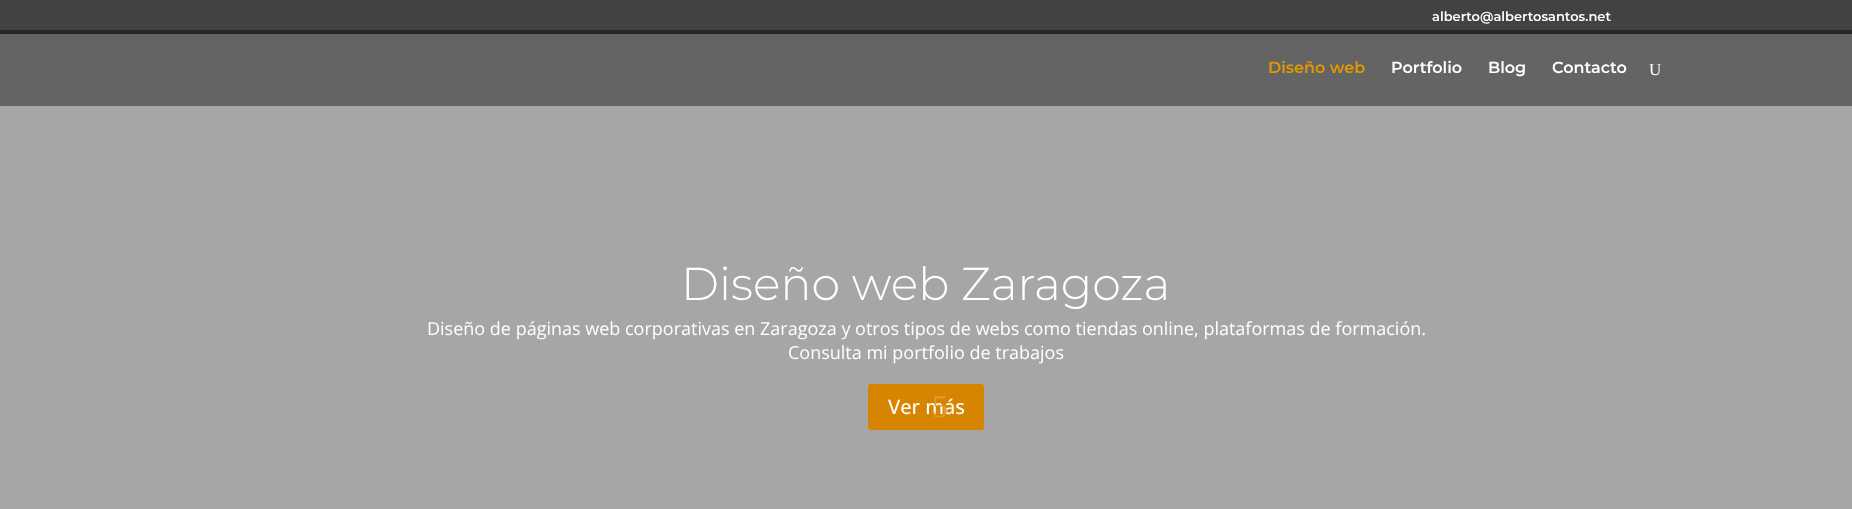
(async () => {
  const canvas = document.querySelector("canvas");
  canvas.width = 1852;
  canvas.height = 509;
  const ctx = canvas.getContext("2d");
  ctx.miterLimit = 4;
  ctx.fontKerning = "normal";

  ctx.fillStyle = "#a6a6a6";
  ctx.fillRect(0, 0, 1852, 509);
  for (const [x, y, w, h, color] of [
    [0, 34, 1852, 72, "#646464"],
    [0, 30, 1852, 4, "#282828"],
    [0, 0, 1852, 30, "#424242"],
  ]) {
    ctx.fillStyle = color;
    ctx.fillRect(x, y, w, h);
  }
  ctx.fillStyle = "#d78400";
  ctx.beginPath();
  ctx.roundRect(868, 384, 116, 46, 3);
  ctx.fill();
  ctx.font = "600 13px Montserrat";
  ctx.fillStyle = "#ffffff";
  ctx.fillText("alberto@albertosantos.net", 1432, 21);
  ctx.font = "600 16px Montserrat";
  ctx.fillStyle = "#e09900";
  ctx.fillText("Diseño web", 1268, 73);
  ctx.fillStyle = "#ffffff";
  for (const [text, x, y] of [
    ["Portfolio", 1391, 73],
    ["Blog", 1488, 73],
    ["Contacto", 1552, 73],
  ]) {
    ctx.fillText(text, x, y);
  }
  ctx.font = "17px Liberation Serif";
  ctx.fillText("U", 1649, 75);
  ctx.font = "300 46px Montserrat";
  ctx.fillText("Diseño web Zaragoza", 681, 300);
  ctx.font = "18px Open Sans";
  ctx.fillText("Diseño de páginas web corporativas en Zaragoza y otros tipos de webs como tiendas online, plataformas de formación.", 427, 335);
  ctx.fillText("Consulta mi portfolio de trabajos", 788, 359);
  ctx.font = "500 20px Open Sans";
  ctx.fillText("Ver más", 888, 414);
  ctx.font = "32px Liberation Serif";
  ctx.fillStyle = "#df9b30";
  ctx.fillText("5", 932, 417);
})();
